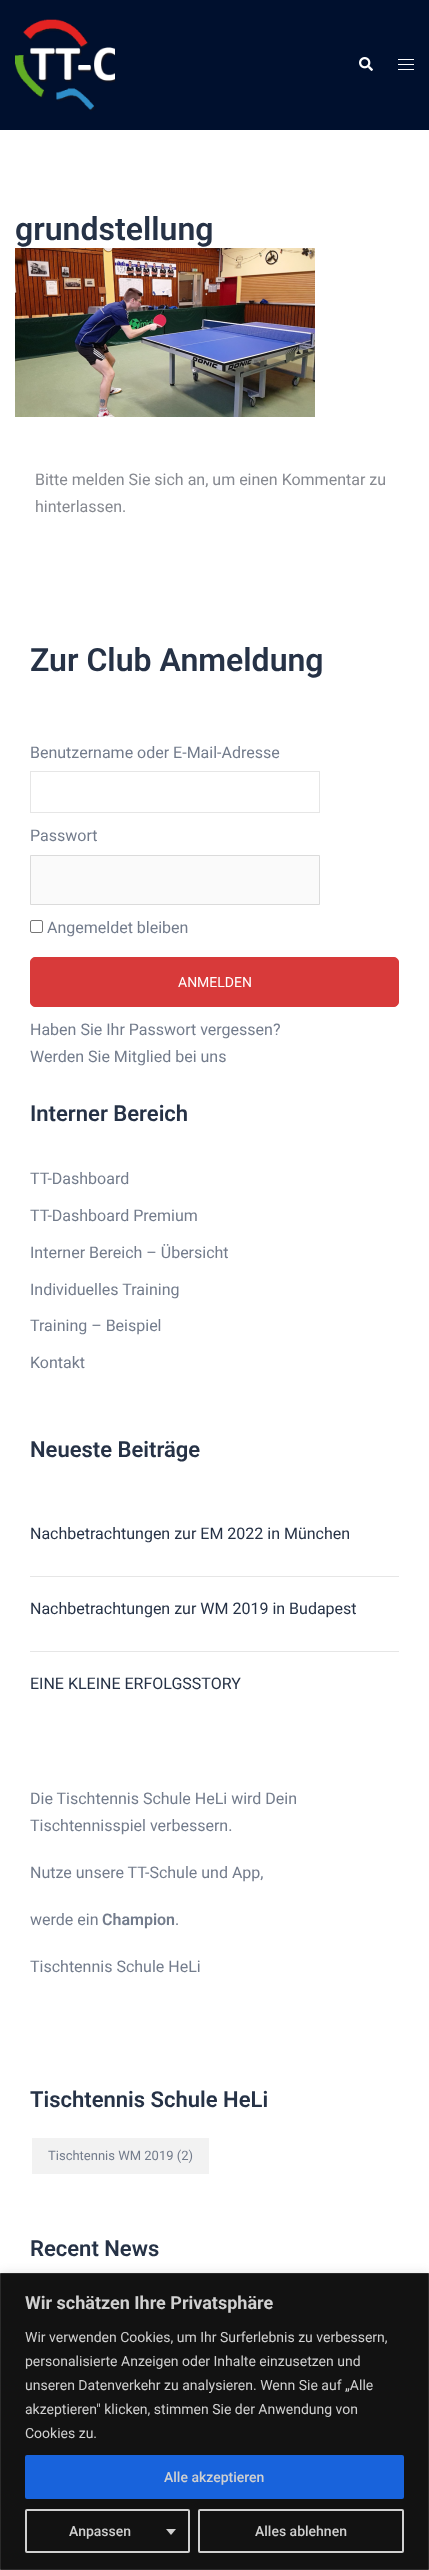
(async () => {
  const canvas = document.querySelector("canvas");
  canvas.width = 429;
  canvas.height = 2570;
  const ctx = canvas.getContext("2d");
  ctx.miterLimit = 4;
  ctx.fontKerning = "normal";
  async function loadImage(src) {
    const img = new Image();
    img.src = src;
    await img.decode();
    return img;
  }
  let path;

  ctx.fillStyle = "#ffffff";
  ctx.fillRect(0, 0, 429, 2570);
  ctx.fillStyle = "#00102e";
  ctx.fillRect(0, 0, 429, 130);
  ctx.drawImage(await loadImage("img/1.png"), 15, 19, 100, 92);
  ctx.drawImage(await loadImage("img/2.png"), 359, 57, 14, 14);
  for (const [x, y, w, h, color] of [
    [398, 59, 16, 1, "#ffffff"],
    [398, 64, 16, 1, "#ffffff"],
    [398, 69, 16, 1, "#ffffff"],
  ]) {
    ctx.fillStyle = color;
    ctx.fillRect(x, y, w, h);
  }
  ctx.drawImage(await loadImage("img/3.png"), 15, 248, 300, 169);
  ctx.strokeStyle = "#e6e6e6";
  ctx.strokeRect(30.5, 771.5, 289, 41);
  ctx.fillStyle = "#fafafa";
  ctx.beginPath();
  ctx.rect(30.5, 855.5, 289, 49);
  ctx.fill();
  ctx.strokeStyle = "#dbdbdb";
  ctx.stroke();
  ctx.beginPath();
  ctx.roundRect(30.5, 920.5, 12, 12, 1.5);
  ctx.strokeStyle = "#767676";
  ctx.stroke();
  ctx.fillStyle = "#d83a3a";
  ctx.beginPath();
  ctx.roundRect(30.5, 957.5, 368, 49, 4.5);
  ctx.fill();
  ctx.strokeStyle = "#d83a3a";
  ctx.stroke();
  for (const [x, y, w, h, color] of [
    [30, 1576, 369, 1, "#e6e6e6"],
    [30, 1651, 369, 1, "#e6e6e6"],
    [32, 2138, 177, 36, "#f2f2f2"],
  ]) {
    ctx.fillStyle = color;
    ctx.fillRect(x, y, w, h);
  }
  ctx.fillStyle = "rgba(172, 171, 171, 0.3)";
  ctx.filter = "blur(5px)";
  ctx.beginPath();
  ctx.rect(0, 2272, 429, 297);
  ctx.fill();
  ctx.filter = "none";
  ctx.fillStyle = "#121212";
  ctx.beginPath();
  ctx.rect(0.5, 2273.5, 428, 296);
  ctx.fill();
  ctx.strokeStyle = "#2a2a2a";
  ctx.stroke();
  ctx.fillStyle = "#1863dc";
  ctx.beginPath();
  ctx.roundRect(26, 2456, 377, 42, 1);
  ctx.fill();
  ctx.strokeStyle = "#1863dc";
  ctx.lineWidth = 2;
  ctx.stroke();
  ctx.beginPath();
  ctx.roundRect(26, 2510, 163, 42, 1);
  ctx.strokeStyle = "#d0d0d0";
  ctx.stroke();
  ctx.fillStyle = "#d0d0d0";
  path = new Path2D("M166 2529H176L171 2535Z");
  ctx.fill(path);
  ctx.beginPath();
  ctx.roundRect(199, 2510, 204, 42, 1);
  ctx.stroke();
  ctx.font = "600 32px Roboto";
  ctx.fillStyle = "#263246";
  ctx.fillText("grundstellung", 15, 240);
  ctx.font = "16px Roboto";
  ctx.fillStyle = "#868990";
  ctx.fillText("Bitte melden Sie sich an, um einen Kommentar zu", 35, 485);
  ctx.fillText("hinterlassen.", 35, 512);
  ctx.font = "600 32px Roboto";
  ctx.fillStyle = "#263246";
  ctx.fillText("Zur Club Anmeldung", 30, 671);
  ctx.font = "16px Roboto";
  ctx.fillStyle = "#737c8c";
  for (const [text, x, y] of [
    ["Benutzername oder E-Mail-Adresse", 30, 758],
    ["Passwort", 30, 841],
    ["Angemeldet bleiben", 47, 933],
  ]) {
    ctx.fillText(text, x, y);
  }
  ctx.font = "14px Roboto";
  ctx.fillStyle = "#ffffff";
  ctx.fillText("ANMELDEN", 178, 987);
  ctx.font = "16px Roboto";
  ctx.fillStyle = "#737c8c";
  ctx.fillText("Haben Sie Ihr Passwort vergessen?", 30, 1035);
  ctx.fillText("Werden Sie Mitglied bei uns", 30, 1062);
  ctx.font = "600 22px Roboto";
  ctx.fillStyle = "#263246";
  ctx.fillText("Interner Bereich", 30, 1121);
  ctx.font = "16px Roboto";
  ctx.fillStyle = "#737c8c";
  for (const [text, x, y] of [
    ["TT-Dashboard", 30, 1184],
    ["TT-Dashboard Premium", 30, 1221],
    ["Interner Bereich – Übersicht", 30, 1258],
    ["Individuelles Training", 30, 1295],
    ["Training – Beispiel", 30, 1331],
    ["Kontakt", 30, 1368],
  ]) {
    ctx.fillText(text, x, y);
  }
  ctx.font = "600 22px Roboto";
  ctx.fillStyle = "#263246";
  ctx.fillText("Neueste Beiträge", 30, 1457);
  ctx.font = "16px Roboto";
  for (const [text, x, y] of [
    ["Nachbetrachtungen zur EM 2022 in München", 30, 1539],
    ["Nachbetrachtungen zur WM 2019 in Budapest", 30, 1614],
    ["EINE KLEINE ERFOLGSSTORY", 30, 1689],
  ]) {
    ctx.fillText(text, x, y);
  }
  ctx.fillStyle = "#737c8c";
  for (const [text, x, y] of [
    ["Die Tischtennis Schule HeLi wird Dein", 30, 1804],
    ["Tischtennisspiel verbessern.", 30, 1831],
    ["Nutze unsere TT-Schule und App,", 30, 1878],
    ["werde ein", 30, 1925],
  ]) {
    ctx.fillText(text, x, y);
  }
  ctx.font = "600 16px Roboto";
  ctx.fillText("Champion", 102, 1925);
  ctx.font = "16px Roboto";
  ctx.fillText(".", 175, 1925);
  ctx.fillText("Tischtennis Schule HeLi", 30, 1972);
  ctx.font = "600 22px Roboto";
  ctx.fillStyle = "#263246";
  ctx.fillText("Tischtennis Schule HeLi", 30, 2107);
  ctx.font = "13px Roboto";
  ctx.fillStyle = "#737c8c";
  ctx.fillText("Tischtennis WM 2019 (2)", 48, 2160);
  ctx.font = "600 22px Roboto";
  ctx.fillStyle = "#263246";
  ctx.fillText("Recent News", 30, 2256);
  ctx.font = "bold 18px Roboto";
  ctx.fillStyle = "#d0d0d0";
  ctx.fillText("Wir schätzen Ihre Privatsphäre", 25, 2309);
  ctx.font = "14px Roboto";
  for (const [text, x, y] of [
    ["Wir verwenden Cookies, um Ihr Surferlebnis zu verbessern,", 25, 2342],
    ["personalisierte Anzeigen oder Inhalte einzusetzen und", 25, 2366],
    ["unseren Datenverkehr zu analysieren. Wenn Sie auf „Alle", 25, 2390],
    ["akzeptieren\" klicken, stimmen Sie der Anwendung von", 25, 2414],
    ["Cookies zu.", 25, 2438],
  ]) {
    ctx.fillText(text, x, y);
  }
  ctx.font = "500 14px Roboto";
  for (const [text, x, y] of [
    ["Alle akzeptieren", 164, 2482],
    ["Anpassen", 69, 2536],
    ["Alles ablehnen", 255, 2536],
  ]) {
    ctx.fillText(text, x, y);
  }
})();
